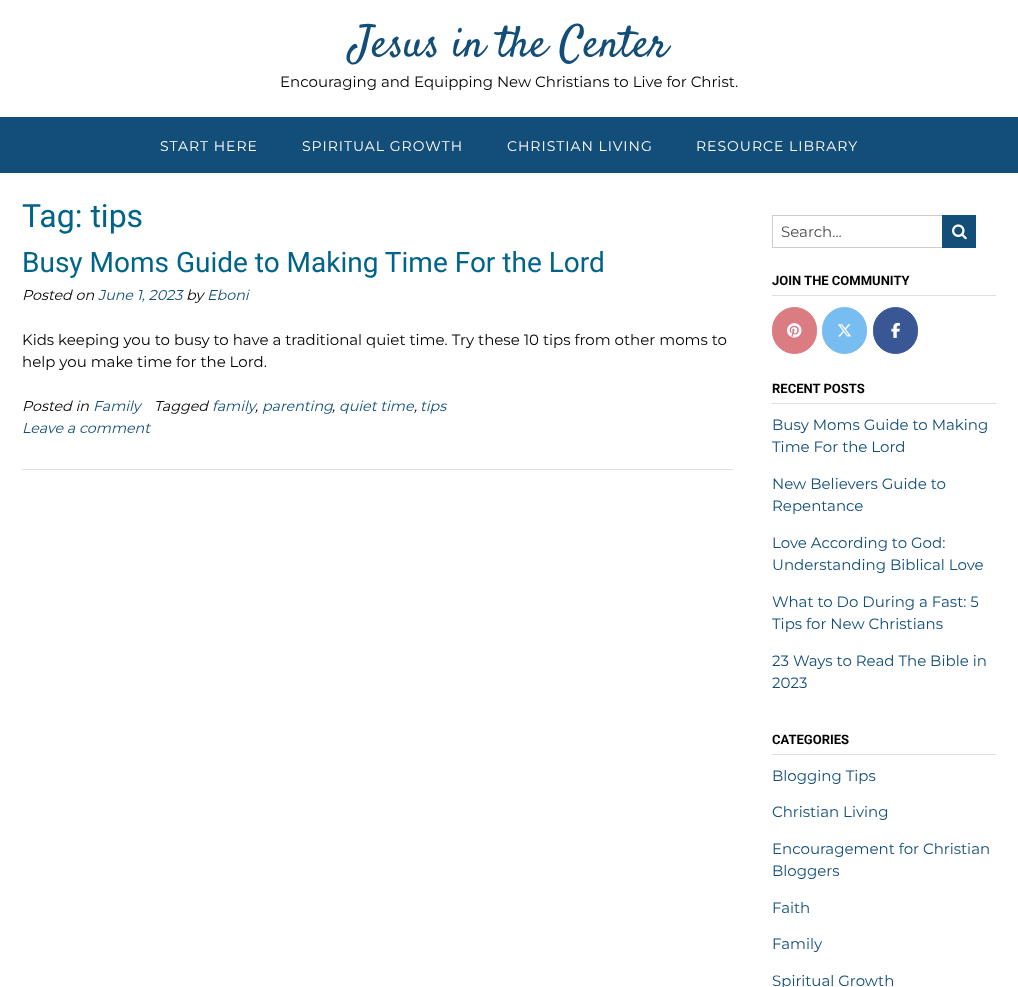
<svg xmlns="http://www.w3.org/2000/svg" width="1018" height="987">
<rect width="100%" height="100%" fill="#fff"/>
<text x="350" y="56" style="font-family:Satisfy;font-size:44px;fill:#124e78">Jesus in the Center</text>
<text x="280" y="87" style="font-family:Montserrat;font-size:15px;fill:#000">Encouraging and Equipping New Christians to Live for Christ.</text>
<rect y="117" width="1018" height="56" fill="#124e78"/>
<text x="160" y="151" style="font-family:Montserrat;font-size:14px;letter-spacing:1px;fill:#fff">START HERE</text>
<text x="302" y="151" style="font-family:Montserrat;font-size:14px;letter-spacing:1px;fill:#fff">SPIRITUAL GROWTH</text>
<text x="507" y="151" style="font-family:Montserrat;font-size:14px;letter-spacing:1px;fill:#fff">CHRISTIAN LIVING</text>
<text x="696" y="151" style="font-family:Montserrat;font-size:14px;letter-spacing:1px;fill:#fff">RESOURCE LIBRARY</text>
<text x="22" y="227" style="font-family:Roboto;font-size:32px;fill:#006489">Tag: tips</text>
<rect x="22" y="469" width="711" height="1" fill="#e0e0e0"/>
<text x="22" y="272" style="font-family:Roboto;font-size:28px;fill:#006489">Busy Moms Guide to Making Time For the Lord</text>
<text x="22" y="300" style="font-family:Montserrat;font-size:14.25px;font-style:italic;fill:#000">Posted on</text>
<text x="98" y="300" style="font-family:Montserrat;font-size:14.25px;font-style:italic;fill:#124e78">June 1, 2023</text>
<text x="186" y="300" style="font-family:Montserrat;font-size:14.25px;font-style:italic;fill:#000">by</text>
<text x="207" y="300" style="font-family:Montserrat;font-size:14.25px;font-style:italic;fill:#124e78">Eboni</text>
<text x="22" y="345" style="font-family:Montserrat;font-size:15px;fill:#000">Kids keeping you to busy to have a traditional quiet time. Try these 10 tips from other moms to</text>
<text x="22" y="367" style="font-family:Montserrat;font-size:15px;fill:#000">help you make time for the Lord.</text>
<text x="22" y="411" style="font-family:Montserrat;font-size:14.25px;font-style:italic;fill:#000">Posted in</text>
<text x="93" y="411" style="font-family:Montserrat;font-size:14.25px;font-style:italic;fill:#124e78">Family</text>
<text x="154" y="411" style="font-family:Montserrat;font-size:14.25px;font-style:italic;fill:#000">Tagged</text>
<text x="212" y="411" style="font-family:Montserrat;font-size:14.25px;font-style:italic;fill:#124e78">family</text>
<text x="262" y="411" style="font-family:Montserrat;font-size:14.25px;font-style:italic;fill:#124e78">parenting</text>
<text x="339" y="411" style="font-family:Montserrat;font-size:14.25px;font-style:italic;fill:#124e78">quiet time</text>
<text x="420" y="411" style="font-family:Montserrat;font-size:14.25px;font-style:italic;fill:#124e78">tips</text>
<text x="255" y="411" style="font-family:Montserrat;font-size:14.25px;font-style:italic;fill:#000">,</text>
<text x="332" y="411" style="font-family:Montserrat;font-size:14.25px;font-style:italic;fill:#000">,</text>
<text x="414" y="411" style="font-family:Montserrat;font-size:14.25px;font-style:italic;fill:#000">,</text>
<text x="22" y="433" style="font-family:Montserrat;font-size:14.25px;font-style:italic;fill:#124e78">Leave a comment</text>
<rect x="772.5" y="215.5" width="171" height="32" fill="none" stroke="#ccc"/>
<text x="781" y="237" style="font-family:Montserrat;font-size:15px;fill:#4d4d4d">Search...</text>
<rect x="942" y="215" width="34" height="33" fill="#124e78"/>
<image x="952" y="224" width="15" height="16" href="media/1.png"/>
<rect x="772" y="295" width="224" height="1" fill="#e0e0e0"/>
<text x="772" y="285" style="font-family:Roboto;font-size:13px;font-weight:bold;fill:#000">JOIN THE COMMUNITY</text>
<rect x="772.5" y="307.5" width="44" height="46" rx="22" fill="#db7c83" stroke="#db7c83"/>
<image x="787" y="323" width="15" height="15" href="media/2.png"/>
<rect x="822.5" y="307.5" width="44" height="46" rx="22" fill="#78bdf1" stroke="#78bdf1"/>
<image x="837" y="324" width="15" height="13" href="media/3.png"/>
<rect x="873.5" y="307.5" width="44" height="46" rx="22" fill="#3a5795" stroke="#3a5795"/>
<image x="891" y="322" width="9" height="16" href="media/4.png"/>
<rect x="772" y="403" width="224" height="1" fill="#e0e0e0"/>
<text x="772" y="393" style="font-family:Roboto;font-size:13px;font-weight:bold;fill:#000">RECENT POSTS</text>
<text x="772" y="430" style="font-family:Montserrat;font-size:15px;fill:#124e78">Busy Moms Guide to Making</text>
<text x="772" y="452" style="font-family:Montserrat;font-size:15px;fill:#124e78">Time For the Lord</text>
<text x="772" y="489" style="font-family:Montserrat;font-size:15px;fill:#124e78">New Believers Guide to</text>
<text x="772" y="511" style="font-family:Montserrat;font-size:15px;fill:#124e78">Repentance</text>
<text x="772" y="548" style="font-family:Montserrat;font-size:15px;fill:#124e78">Love According to God:</text>
<text x="772" y="570" style="font-family:Montserrat;font-size:15px;fill:#124e78">Understanding Biblical Love</text>
<text x="772" y="607" style="font-family:Montserrat;font-size:15px;fill:#124e78">What to Do During a Fast: 5</text>
<text x="772" y="629" style="font-family:Montserrat;font-size:15px;fill:#124e78">Tips for New Christians</text>
<text x="772" y="666" style="font-family:Montserrat;font-size:15px;fill:#124e78">23 Ways to Read The Bible in</text>
<text x="772" y="688" style="font-family:Montserrat;font-size:15px;fill:#124e78">2023</text>
<rect x="772" y="754" width="224" height="1" fill="#e0e0e0"/>
<text x="772" y="744" style="font-family:Roboto;font-size:13px;font-weight:bold;fill:#000">CATEGORIES</text>
<text x="772" y="781" style="font-family:Montserrat;font-size:15px;fill:#124e78">Blogging Tips</text>
<text x="772" y="817" style="font-family:Montserrat;font-size:15px;fill:#124e78">Christian Living</text>
<text x="772" y="854" style="font-family:Montserrat;font-size:15px;fill:#124e78">Encouragement for Christian</text>
<text x="772" y="876" style="font-family:Montserrat;font-size:15px;fill:#124e78">Bloggers</text>
<text x="772" y="913" style="font-family:Montserrat;font-size:15px;fill:#124e78">Faith</text>
<text x="772" y="949" style="font-family:Montserrat;font-size:15px;fill:#124e78">Family</text>
<text x="772" y="986" style="font-family:Montserrat;font-size:15px;fill:#124e78">Spiritual Growth</text>
</svg>
